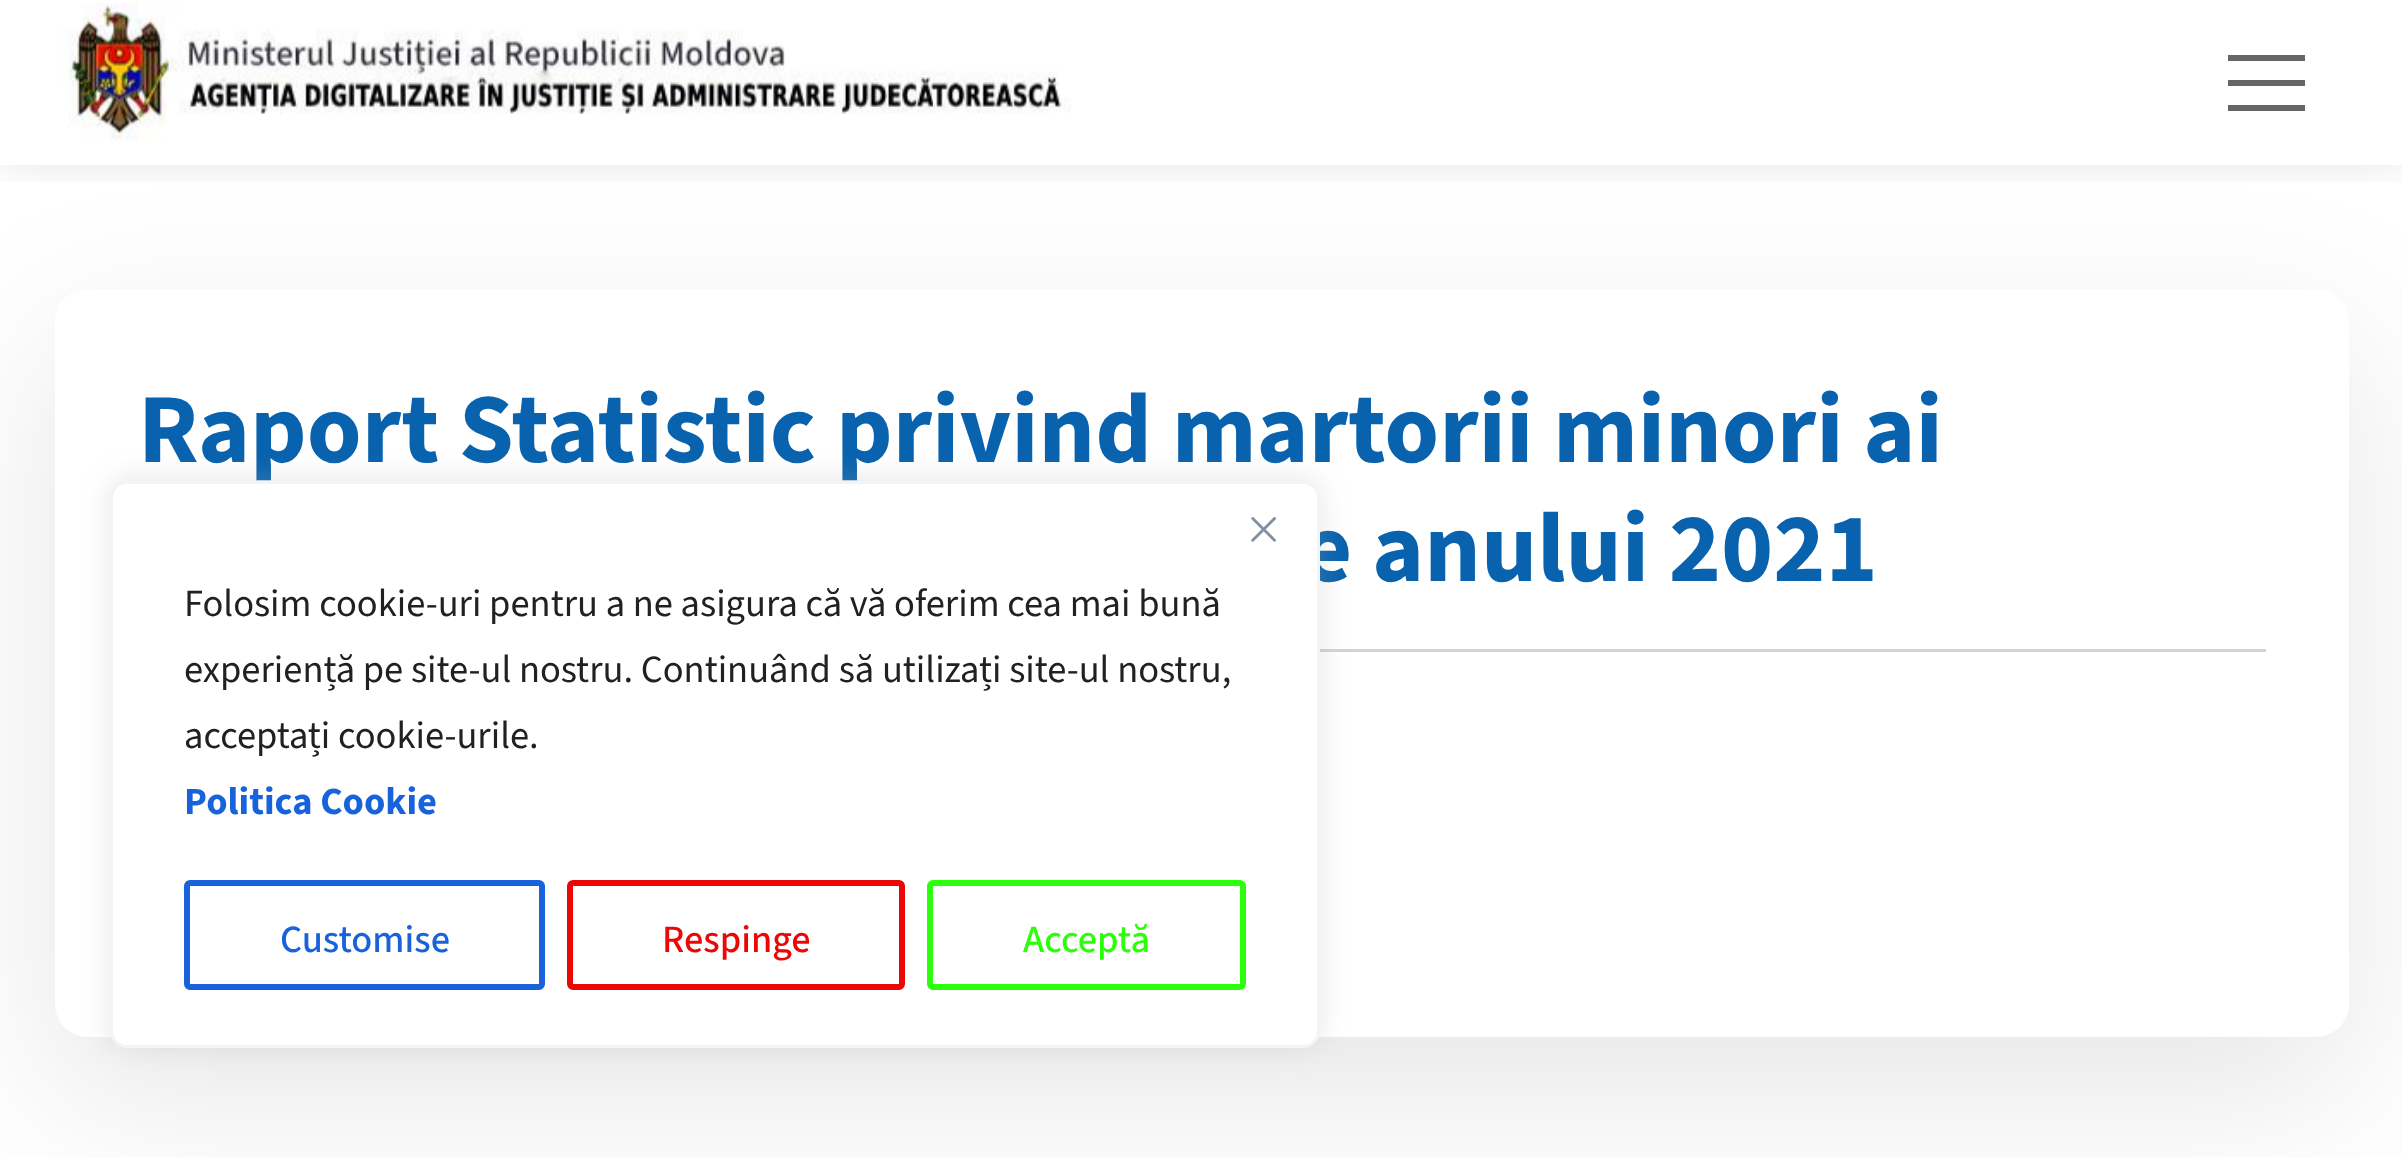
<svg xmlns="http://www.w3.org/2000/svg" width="2402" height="1157">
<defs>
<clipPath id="clip1"><rect x="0" y="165" width="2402" height="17"/></clipPath>
<clipPath id="clip2"><path d="M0 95h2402v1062h-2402zm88 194h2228c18 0 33 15 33 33v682c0 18-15 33-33 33h-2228c-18 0-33-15-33-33v-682c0-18 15-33 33-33z" clip-rule="evenodd"/></clipPath>
</defs>
<rect width="100%" height="100%" fill="#fff"/>
<g clip-path="url(#clip1)">
<rect width="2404" height="165" fill="#0000001a" filter="blur(20.5px)"/>
</g>
<g clip-path="url(#clip2)">
<rect x="55" y="344" width="2294" height="748" rx="33" fill="#0000001a" filter="blur(82.5px)"/>
</g>
<image x="59" y="2" width="1012" height="139" href="media/1.png"/>
<rect x="2228" y="55" width="77" height="6" fill="#666"/>
<rect x="2228" y="80" width="77" height="6" fill="#666"/>
<rect x="2228" y="105" width="77" height="6" fill="#666"/>
<rect x="1320" y="649" width="946" height="3" fill="#d3d3d3"/>
<text x="138" y="462" style="font-family:'Source Sans 3';font-size:99px;font-weight:bold;fill:#0862ae">Raport Statistic privind martorii minori ai</text>
<text x="1301" y="581" style="font-family:'Source Sans 3';font-size:99px;font-weight:bold;fill:#0862ae">e anului 2021</text>
<rect x="110" y="479" width="1210" height="566" rx="17" fill="#acabab4d" filter="blur(14px)"/>
<rect x="111.5" y="482.5" width="1207" height="564" rx="15.5" fill="#fff" stroke="#f4f4f4" stroke-width="3"/>
<image x="1251" y="517" width="25" height="25" href="media/2.png"/>
<text x="184" y="616" style="font-family:'Source Sans 3';font-size:38.5px;fill:#212121">Folosim cookie-uri pentru a ne asigura că vă oferim cea mai bună</text>
<text x="184" y="682" style="font-family:'Source Sans 3';font-size:38.5px;fill:#212121">experiență pe site-ul nostru. Continuând să utilizați site-ul nostru,</text>
<text x="184" y="748" style="font-family:'Source Sans 3';font-size:38.5px;fill:#212121">acceptați cookie-urile.</text>
<text x="184" y="814" style="font-family:'Source Sans 3';font-size:38.5px;font-weight:bold;fill:#1863dc">Politica Cookie</text>
<rect x="187" y="883" width="355" height="104" rx="3" fill="none" stroke="#1863dc" stroke-width="6"/>
<text x="280" y="952" style="font-family:'Source Sans 3';font-size:38.5px;font-weight:500;fill:#1863dc">Customise</text>
<rect x="570" y="883" width="332" height="104" rx="3" fill="none" stroke="#ec0707" stroke-width="6"/>
<text x="662" y="952" style="font-family:'Source Sans 3';font-size:38.5px;font-weight:500;fill:#ec0707">Respinge</text>
<rect x="930" y="883" width="313" height="104" rx="3" fill="none" stroke="#2bff09" stroke-width="6"/>
<text x="1023" y="952" style="font-family:'Source Sans 3';font-size:38.5px;font-weight:500;fill:#2bff09">Acceptă</text>
</svg>
